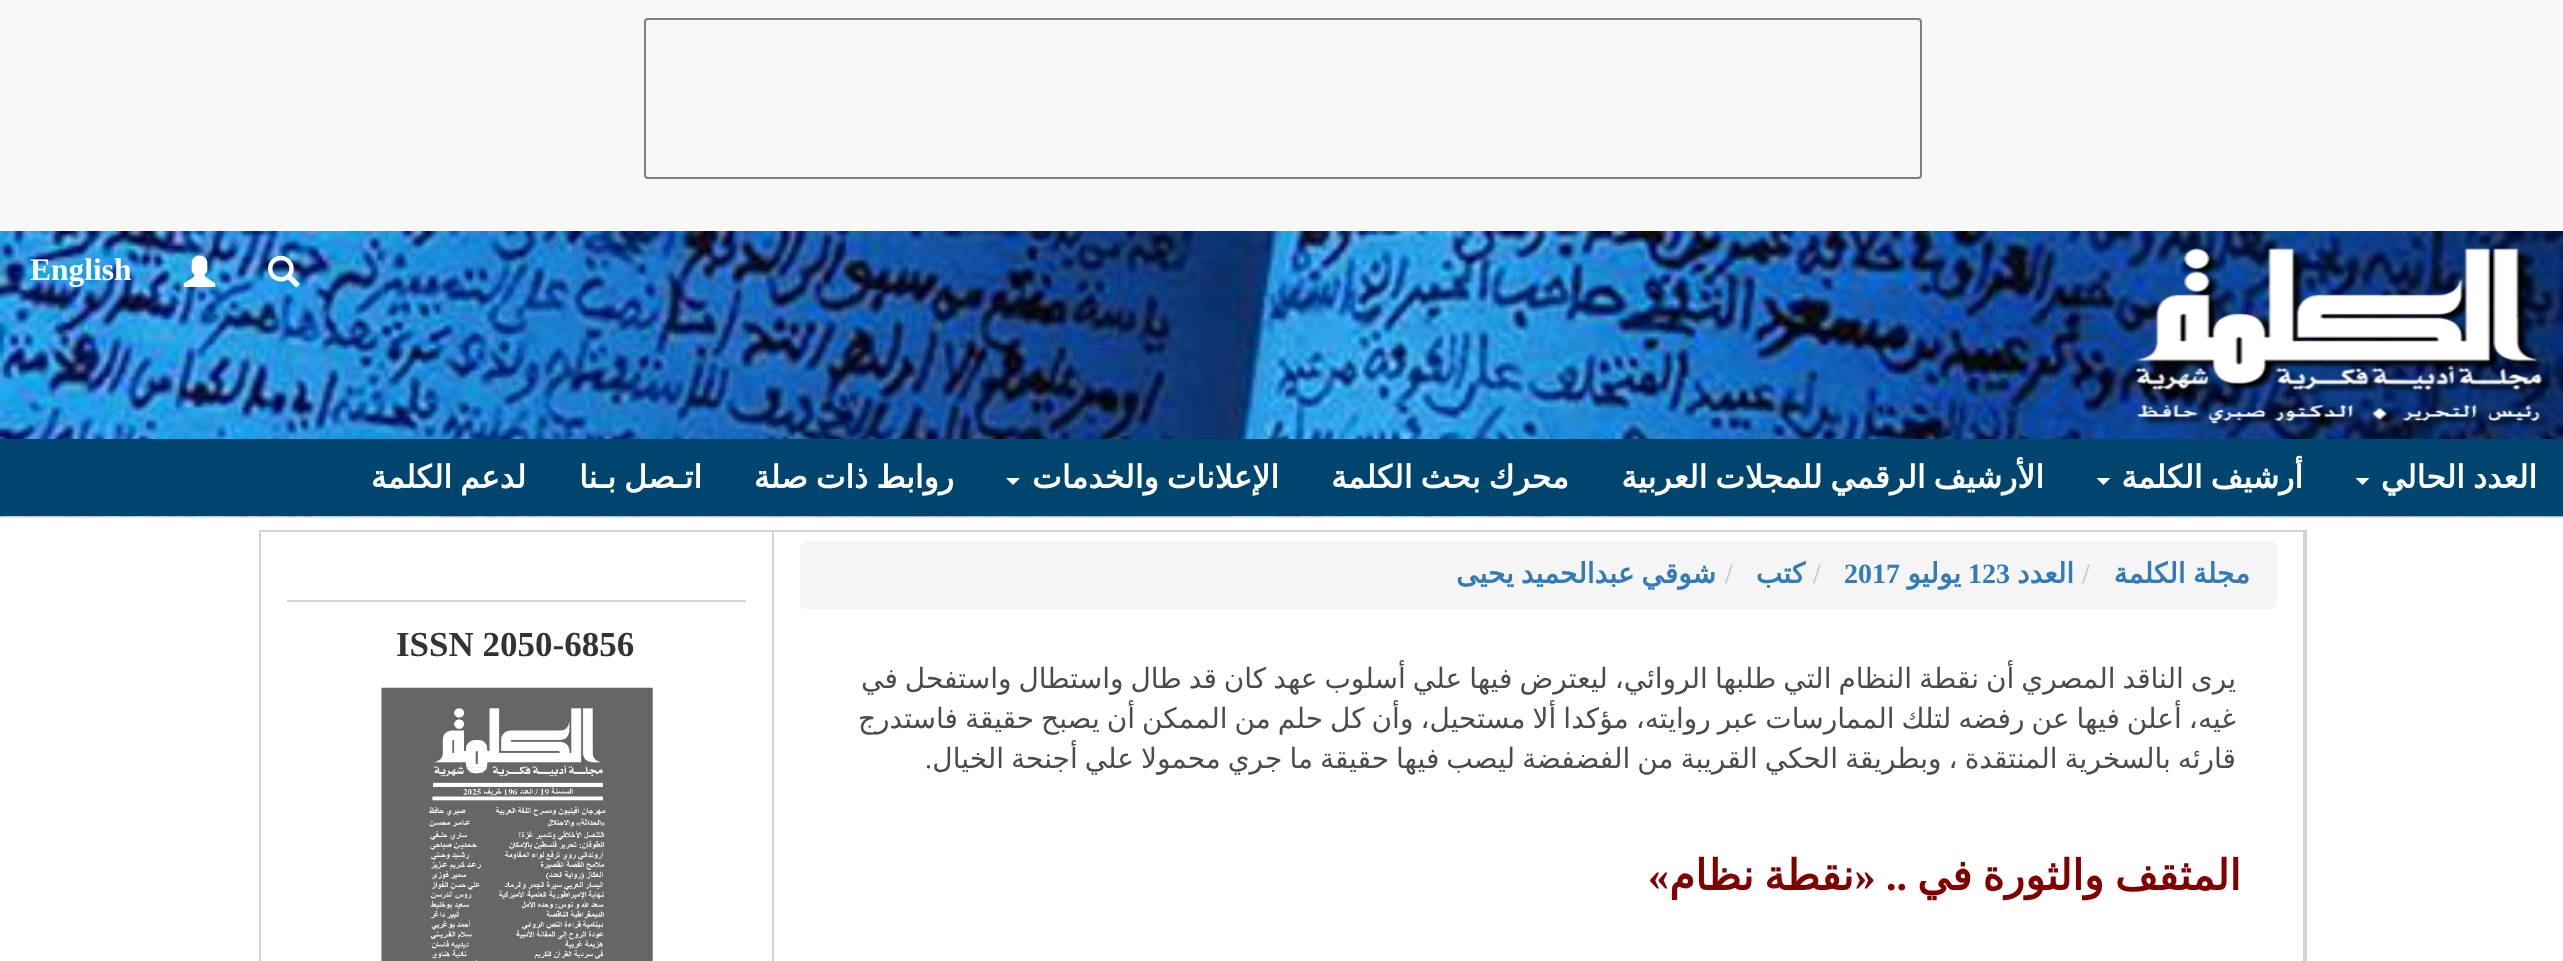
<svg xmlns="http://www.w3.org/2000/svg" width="2563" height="961">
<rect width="100%" height="100%" fill="#fff"/>
<rect width="2563" height="231" fill="#f8f8f8"/>
<rect y="516" width="2563" height="2" fill="#e7e7e7"/>
<rect x="645" y="19" width="1276" height="159" rx="3" fill="none" stroke="#808080" stroke-width="2"/>
<image x="0" y="231" width="2563" height="286" href="media/1.png"/>
<image x="2135" y="248" width="418" height="184" href="media/2.png"/>
<image x="268" y="255" width="32" height="33" href="media/3.png"/>
<image x="183" y="255" width="33" height="32" href="media/4.png"/>
<text x="30" y="280" style="font-family:Liberation Serif;font-size:31.5px;font-weight:bold;fill:#fff">English</text>
<rect y="439" width="2563" height="77" fill="#00456e"/>
<text x="2537" y="488" word-spacing="-2" style="font-family:DejaVu Sans;font-size:31.5px;font-weight:bold;direction:rtl;fill:#fff">العدد الحالي</text>
<path d="M2355.5 478h14l-7 7z" fill="#fff"/>
<text x="2303" y="488" word-spacing="-2" style="font-family:DejaVu Sans;font-size:31.5px;font-weight:bold;direction:rtl;fill:#fff">أرشيف الكلمة</text>
<path d="M2096.5 478h14l-7 7z" fill="#fff"/>
<text x="2044" y="488" word-spacing="-2" style="font-family:DejaVu Sans;font-size:31.5px;font-weight:bold;direction:rtl;fill:#fff">الأرشيف الرقمي للمجلات العربية</text>
<text x="1569" y="488" word-spacing="-2" style="font-family:DejaVu Sans;font-size:31.5px;font-weight:bold;direction:rtl;fill:#fff">محرك بحث الكلمة</text>
<text x="1279" y="488" word-spacing="-2" style="font-family:DejaVu Sans;font-size:31.5px;font-weight:bold;direction:rtl;fill:#fff">الإعلانات والخدمات</text>
<path d="M1006 478h14l-7 7z" fill="#fff"/>
<text x="954" y="488" word-spacing="-2" style="font-family:DejaVu Sans;font-size:31.5px;font-weight:bold;direction:rtl;fill:#fff">روابط ذات صلة</text>
<text x="702" y="488" word-spacing="-2" style="font-family:DejaVu Sans;font-size:31.5px;font-weight:bold;direction:rtl;fill:#fff">اتـصل بـنا</text>
<text x="526" y="488" word-spacing="-2" style="font-family:DejaVu Sans;font-size:31.5px;font-weight:bold;direction:rtl;fill:#fff">لدعم الكلمة</text>
<rect x="260" y="531" width="2046" height="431" fill="none" stroke="#d3d3d3" stroke-width="2"/>
<rect x="2303" y="532" width="2" height="429" fill="#d3d3d3"/>
<rect x="772" y="532" width="2" height="429" fill="#d3d3d3"/>
<rect x="800" y="541" width="1477" height="68" rx="7" fill="#f5f5f5"/>
<text x="2250" y="583" word-spacing="-1.9" style="font-family:DejaVu Sans;font-size:28px;font-weight:bold;direction:rtl;fill:#337ab7">مجلة الكلمة</text>
<text x="2082" y="583" style="font-family:Liberation Serif;font-size:28px;font-weight:bold;fill:#ccc">/</text>
<text x="2074" y="583" style="font-family:DejaVu Sans;font-size:28px;font-weight:bold;direction:rtl;fill:#337ab7">العدد</text>
<text x="1968" y="583" style="font-family:Liberation Serif;font-size:28px;font-weight:bold;fill:#337ab7">123</text>
<text x="1961" y="583" style="font-family:DejaVu Sans;font-size:28px;font-weight:bold;direction:rtl;fill:#337ab7">يوليو</text>
<text x="1844" y="583" style="font-family:Liberation Serif;font-size:28px;font-weight:bold;fill:#337ab7">2017</text>
<text x="1813" y="583" style="font-family:Liberation Serif;font-size:28px;font-weight:bold;fill:#ccc">/</text>
<text x="1805" y="583" style="font-family:DejaVu Sans;font-size:28px;font-weight:bold;direction:rtl;fill:#337ab7">كتب</text>
<text x="1725" y="583" style="font-family:Liberation Serif;font-size:28px;font-weight:bold;fill:#ccc">/</text>
<text x="1716" y="583" word-spacing="-1.9" style="font-family:DejaVu Sans;font-size:28px;font-weight:bold;direction:rtl;fill:#337ab7">شوقي عبدالحميد يحيى</text>
<text x="2236" y="688" word-spacing="-1.9" style="font-family:DejaVu Sans;font-size:28px;direction:rtl;fill:#4e4a4a">يرى الناقد المصري أن نقطة النظام التي طلبها الروائي، ليعترض فيها علي أسلوب عهد كان قد طال واستطال واستفحل في</text>
<text x="2236" y="728" word-spacing="-1.9" style="font-family:DejaVu Sans;font-size:28px;direction:rtl;fill:#4e4a4a">غيه، أعلن فيها عن رفضه لتلك الممارسات عبر روايته، مؤكدا ألا مستحيل، وأن كل حلم من الممكن أن يصبح حقيقة فاستدرج</text>
<text x="2236" y="768" word-spacing="-1.9" style="font-family:DejaVu Sans;font-size:28px;direction:rtl;fill:#4e4a4a">قارئه بالسخرية المنتقدة ، وبطريقة الحكي القريبة من الفضفضة ليصب فيها حقيقة ما جري محمولا علي أجنحة الخيال</text>
<text x="932" y="768" style="font-family:Liberation Serif;font-size:28px;direction:rtl;fill:#4e4a4a">.</text>
<text x="2241" y="890" style="font-family:DejaVu Sans;font-size:42px;font-weight:bold;direction:rtl;fill:#800000">المثقف</text>
<text x="2104" y="890" style="font-family:DejaVu Sans;font-size:42px;font-weight:bold;direction:rtl;fill:#800000">والثورة</text>
<text x="1972" y="890" style="font-family:DejaVu Sans;font-size:42px;font-weight:bold;direction:rtl;fill:#800000">في</text>
<text x="1907" y="890" style="font-family:Liberation Serif;font-size:42px;font-weight:bold;direction:rtl;fill:#800000">.. «</text>
<text x="1854" y="890" style="font-family:DejaVu Sans;font-size:42px;font-weight:bold;direction:rtl;fill:#800000">نقطة</text>
<text x="1754" y="890" style="font-family:DejaVu Sans;font-size:42px;font-weight:bold;direction:rtl;fill:#800000">نظام</text>
<text x="1669" y="890" style="font-family:Liberation Serif;font-size:42px;font-weight:bold;direction:rtl;fill:#800000">»</text>
<rect x="287" y="600" width="459" height="2" fill="#d3d3d3"/>
<text x="396" y="656" style="font-family:Liberation Serif;font-size:35px;font-weight:bold;fill:#333">ISSN 2050-6856</text>
<image x="381" y="687" width="272" height="274" href="media/5.png"/>
</svg>
